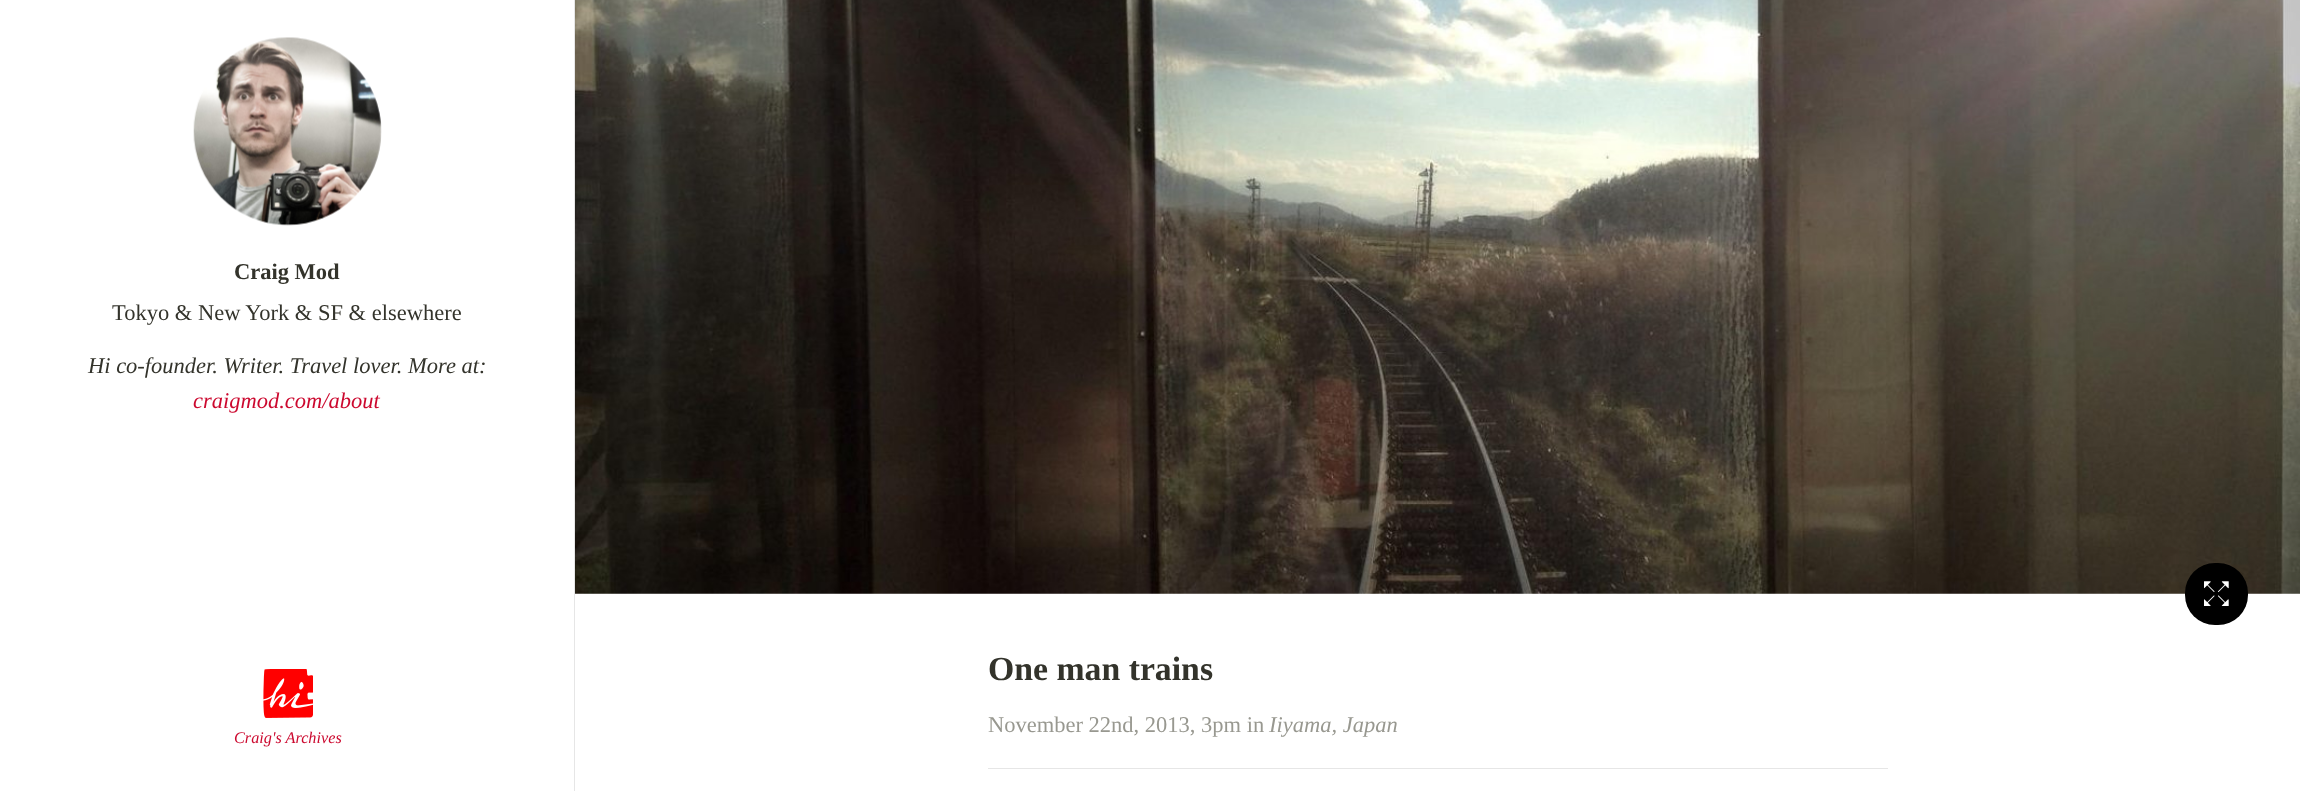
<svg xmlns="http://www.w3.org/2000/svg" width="2300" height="791">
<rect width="100%" height="100%" fill="#fff"/>
<rect x="574" width="1" height="791" fill="#e6e6e6"/>
<image x="193" y="37" width="189" height="189" href="media/1.png"/>
<text x="234" y="279" style="font-family:Liberation Serif;font-size:22.5px;font-weight:bold;fill:#33332b">Craig Mod</text>
<text x="112" y="320" style="font-family:Liberation Serif;font-size:22.5px;fill:#33332b">Tokyo &amp; New York &amp; SF &amp; elsewhere</text>
<text x="88" y="373" style="font-family:Liberation Serif;font-size:22.5px;font-style:italic;fill:#33332b">Hi co-founder. Writer. Travel lover. More at:</text>
<text x="193" y="408" style="font-family:Liberation Serif;font-size:22.5px;font-style:italic;fill:#cc092f">craigmod.com/about</text>
<image x="263" y="669" width="50" height="49" href="media/2.png"/>
<text x="234" y="743" style="font-family:Liberation Serif;font-size:16.25px;font-style:italic;fill:#cc092f">Craig's Archives</text>
<image x="575" y="0" width="1725" height="594" href="media/3.png"/>
<rect x="2185" y="563" width="63" height="62" rx="30" fill="#000"/>
<image x="2204" y="581" width="25" height="25" href="media/4.png"/>
<text x="988" y="680" style="font-family:Liberation Serif;font-size:33.75px;font-weight:bold;fill:#33332b">One man trains</text>
<text x="988" y="732" style="font-family:Liberation Serif;font-size:22.5px;fill:#989890">November 22nd, 2013, 3pm in</text>
<text x="1269" y="732" style="font-family:Liberation Serif;font-size:22.5px;font-style:italic;fill:#989890">Iiyama, Japan</text>
<rect x="988" y="768" width="900" height="1" fill="#e6e6e6"/>
</svg>
